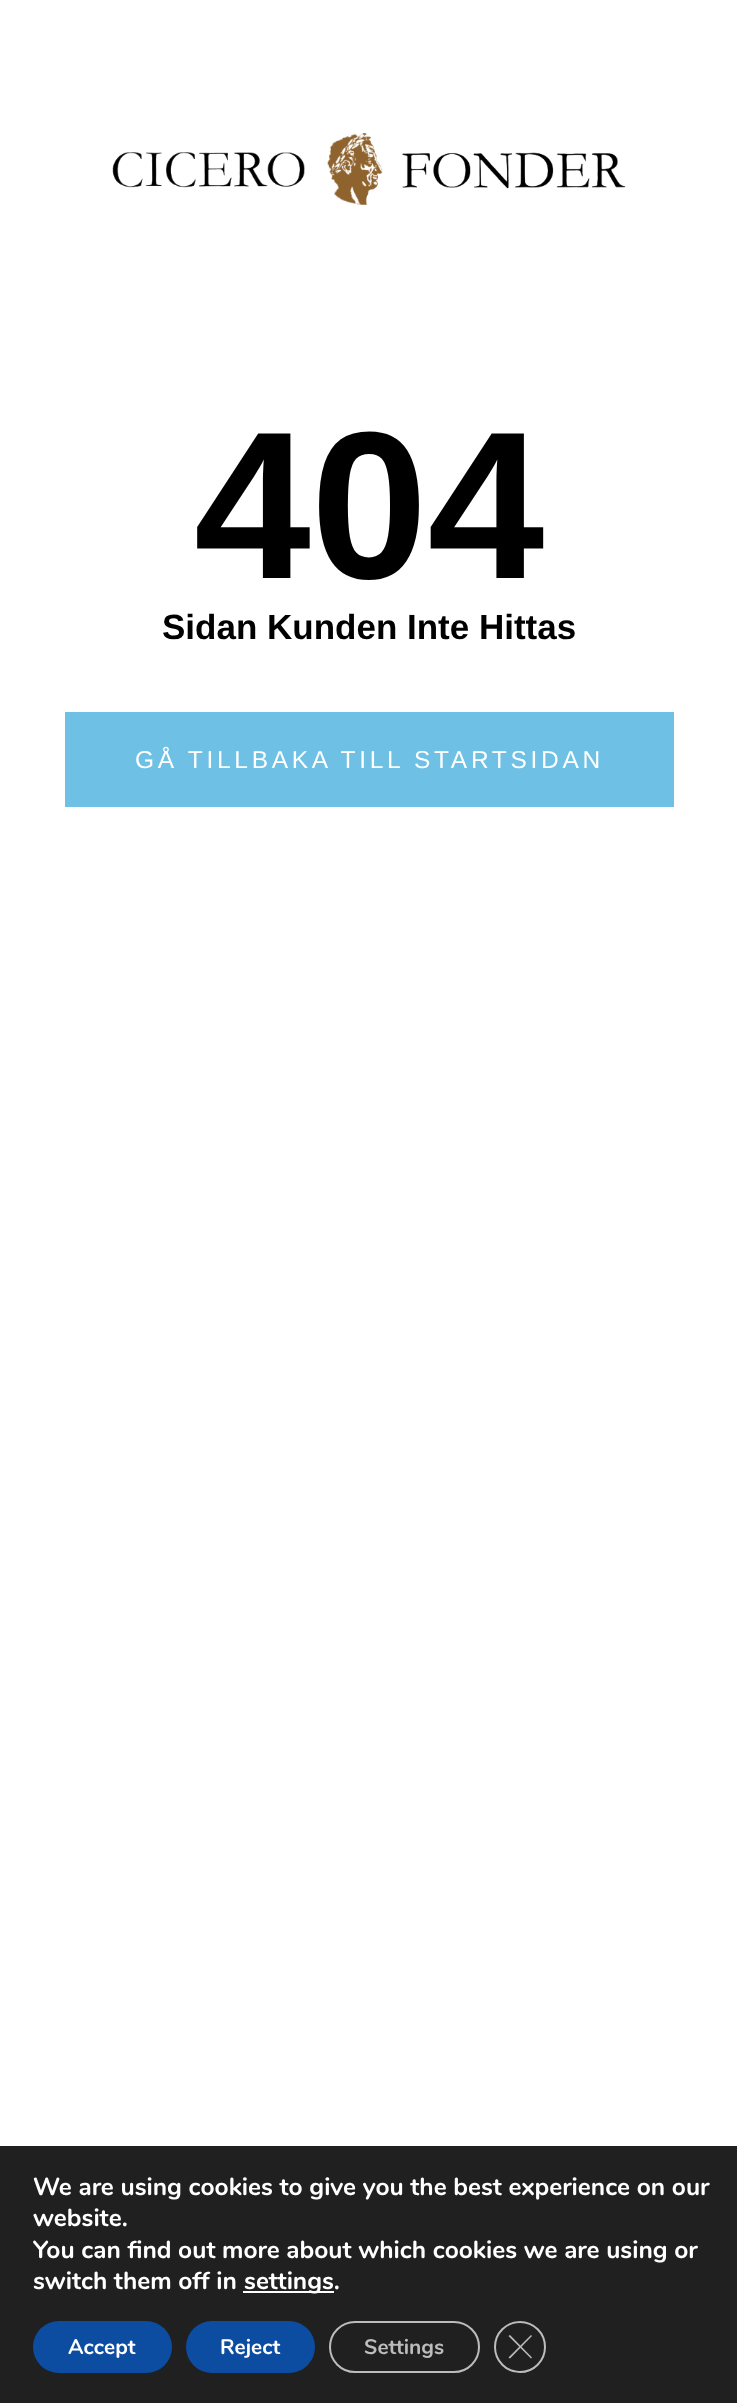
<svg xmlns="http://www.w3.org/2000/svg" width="737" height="2403">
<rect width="100%" height="100%" fill="#fff"/>
<image x="112" y="133" width="514" height="72" href="media/1.png"/>
<text x="194" y="578" style="font-family:Liberation Sans;font-size:210px;font-weight:bold;fill:#000">404</text>
<text x="162" y="639" style="font-family:Liberation Sans;font-size:35px;font-weight:bold;fill:#000">Sidan Kunden Inte Hittas</text>
<rect x="65" y="712" width="609" height="95" fill="#6ec1e4"/>
<text x="135" y="768" style="font-family:Liberation Sans;font-size:24.5px;letter-spacing:3.7px;fill:#fff">GÅ TILLBAKA TILL STARTSIDAN</text>
<rect y="2146" width="737" height="257" fill="#202020"/>
<text x="33" y="2195" style="font-family:Nunito;font-size:24.5px;font-weight:bold;fill:#fff">We are using cookies to give you the best experience on our</text>
<text x="33" y="2226" style="font-family:Nunito;font-size:24.5px;font-weight:bold;fill:#fff">website.</text>
<text x="33" y="2258" style="font-family:Nunito;font-size:24.5px;font-weight:bold;fill:#fff">You can find out more about which cookies we are using or</text>
<text x="33" y="2289" style="font-family:Nunito;font-size:24.5px;font-weight:bold;fill:#fff">switch them off in</text>
<rect x="243" y="2291" width="91" height="2" fill="#fff"/>
<text x="244" y="2289" style="font-family:Nunito;font-size:24.5px;font-weight:bold;fill:#fff">settings.</text>
<rect x="33" y="2321" width="139" height="52" rx="26" fill="#0c4da2"/>
<text x="68" y="2354" style="font-family:Nunito;font-size:21px;font-weight:bold;fill:#fff">Accept</text>
<rect x="186" y="2321" width="129" height="52" rx="26" fill="#0c4da2"/>
<text x="220" y="2354" style="font-family:Nunito;font-size:21px;font-weight:bold;fill:#fff">Reject</text>
<rect x="330" y="2322" width="149" height="50" rx="25" fill="none" stroke="#bcbcbc" stroke-width="2"/>
<text x="364" y="2354" style="font-family:Nunito;font-size:21px;font-weight:bold;fill:#bcbcbc">Settings</text>
<circle cx="520" cy="2347" r="25" fill="none" stroke="#bcbcbc" stroke-width="2"/>
<path d="M531 2335l1 1l-22 22.5l-1.5-1z" fill="#bcbcbc"/>
<path d="M508.5 2336l1.5-1l22 22.5l-1 1z" fill="#bcbcbc"/>
</svg>
